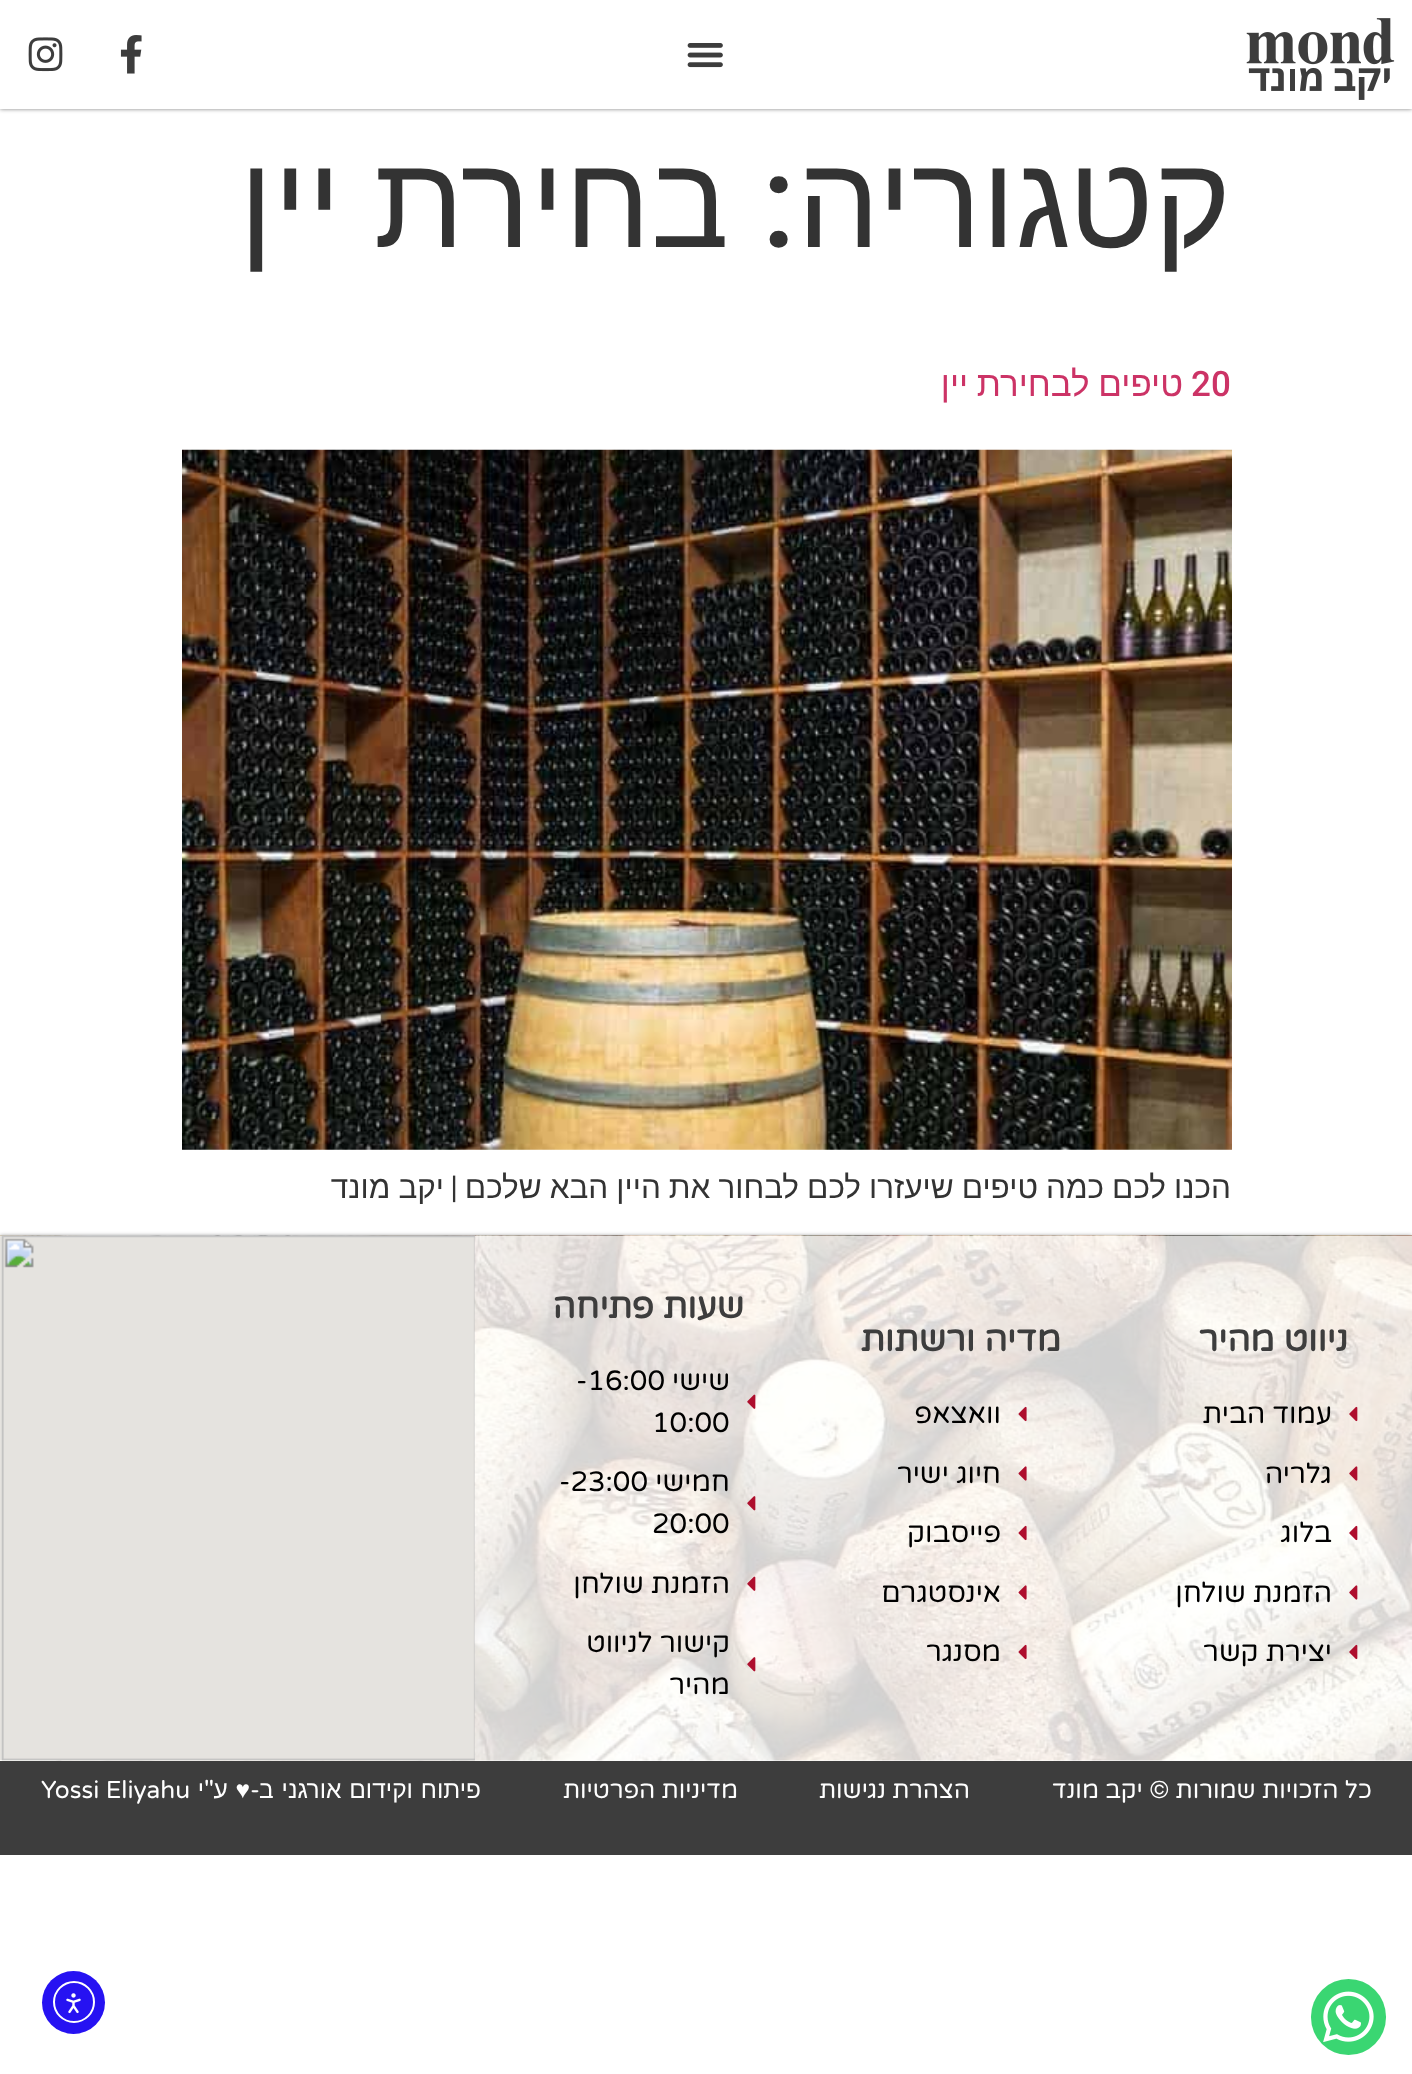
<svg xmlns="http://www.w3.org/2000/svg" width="1412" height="2074">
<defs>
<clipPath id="clip1"><path d="M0 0h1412v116h-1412zm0 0h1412v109h-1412z" clip-rule="evenodd"/></clipPath>
</defs>
<rect width="100%" height="100%" fill="#fff"/>
<g clip-path="url(#clip1)">
<rect width="1412" height="109" fill="#00000080" filter="blur(2px)"/>
</g>
<image x="1246" y="18" width="149" height="82" href="media/1.png"/>
<image x="687" y="43" width="36" height="25" href="media/2.png"/>
<image x="120" y="35" width="22" height="39" href="media/3.png"/>
<image x="28" y="37" width="35" height="35" href="media/4.png"/>
<text x="1231" y="247" style="font-family:Liberation Sans;font-size:131px;direction:rtl;fill:#333">קטגוריה</text>
<text x="796" y="247" style="font-family:Roboto;font-size:131px;font-weight:500;direction:rtl;fill:#333">:</text>
<text x="729" y="247" word-spacing="-4" style="font-family:Liberation Sans;font-size:131px;direction:rtl;fill:#333">בחירת יין</text>
<text x="1191" y="396" style="font-family:Roboto;font-size:35px;font-weight:500;fill:#c36">20</text>
<text x="1183" y="396" word-spacing="-1" style="font-family:Liberation Sans;font-size:35px;direction:rtl;fill:#c36">טיפים לבחירת יין</text>
<image x="182" y="449" width="1050" height="701" href="media/5.png"/>
<text x="1231" y="1198" word-spacing="-0.75" style="font-family:Liberation Sans;font-size:31.5px;direction:rtl;fill:#333">הכנו לכם כמה טיפים שיעזרו לכם לבחור את היין הבא שלכם</text>
<text x="458" y="1198" style="font-family:Roboto;font-size:31.5px;direction:rtl;fill:#333">|</text>
<text x="444" y="1198" word-spacing="-0.75" style="font-family:Liberation Sans;font-size:31.5px;direction:rtl;fill:#333">יקב מונד</text>
<rect y="1236" width="1412" height="525" fill="#00000080" filter="blur(2px)"/>
<rect y="1760" width="1412" height="1" fill="#fff"/>
<image x="0" y="1235" width="1412" height="526" href="media/6.png"/>
<rect y="1236" width="1412" height="525" fill="#ffffffcc"/>
<image x="0" y="1235" width="475" height="526" href="media/7.png"/>
<text x="1348" y="1351" style="font-family:Varela Round;font-size:35px;font-weight:bold;direction:rtl;fill:#3d3d3d">ניווט מהיר</text>
<image x="1349" y="1406" width="9" height="16" href="media/8.png"/>
<text x="1332" y="1423" style="font-family:Varela Round;font-size:28px;direction:rtl;fill:#000">עמוד הבית</text>
<image x="1349" y="1466" width="9" height="15" href="media/9.png"/>
<text x="1332" y="1483" style="font-family:Varela Round;font-size:28px;direction:rtl;fill:#000">גלריה</text>
<image x="1349" y="1525" width="9" height="16" href="media/10.png"/>
<text x="1332" y="1542" style="font-family:Varela Round;font-size:28px;direction:rtl;fill:#000">בלוג</text>
<image x="1349" y="1585" width="9" height="15" href="media/11.png"/>
<text x="1332" y="1602" style="font-family:Varela Round;font-size:28px;direction:rtl;fill:#000">הזמנת שולחן</text>
<image x="1349" y="1644" width="9" height="16" href="media/12.png"/>
<text x="1332" y="1661" style="font-family:Varela Round;font-size:28px;direction:rtl;fill:#000">יצירת קשר</text>
<text x="1061" y="1351" style="font-family:Varela Round;font-size:35px;font-weight:bold;direction:rtl;fill:#3d3d3d">מדיה ורשתות</text>
<image x="1018" y="1406" width="9" height="16" href="media/13.png"/>
<text x="1001" y="1423" style="font-family:Varela Round;font-size:28px;direction:rtl;fill:#000">וואצאפ</text>
<image x="1018" y="1466" width="9" height="15" href="media/14.png"/>
<text x="1001" y="1483" style="font-family:Varela Round;font-size:28px;direction:rtl;fill:#000">חיוג ישיר</text>
<image x="1018" y="1525" width="9" height="16" href="media/15.png"/>
<text x="1001" y="1542" style="font-family:Varela Round;font-size:28px;direction:rtl;fill:#000">פייסבוק</text>
<image x="1018" y="1585" width="9" height="15" href="media/16.png"/>
<text x="1001" y="1602" style="font-family:Varela Round;font-size:28px;direction:rtl;fill:#000">אינסטגרם</text>
<image x="1018" y="1644" width="9" height="16" href="media/17.png"/>
<text x="1001" y="1661" style="font-family:Varela Round;font-size:28px;direction:rtl;fill:#000">מסנגר</text>
<text x="744" y="1318" style="font-family:Varela Round;font-size:35px;font-weight:bold;direction:rtl;fill:#3d3d3d">שעות פתיחה</text>
<image x="747" y="1394" width="9" height="15" href="media/18.png"/>
<text x="730" y="1390" style="font-family:Varela Round;font-size:28px;direction:rtl;fill:#000">שישי</text>
<text x="576" y="1390" style="font-family:Varela Round;font-size:28px;fill:#000">-16:00</text>
<text x="652" y="1432" style="font-family:Varela Round;font-size:28px;fill:#000">10:00</text>
<image x="747" y="1496" width="9" height="15" href="media/19.png"/>
<text x="730" y="1491" style="font-family:Varela Round;font-size:28px;direction:rtl;fill:#000">חמישי</text>
<text x="559" y="1491" style="font-family:Varela Round;font-size:28px;fill:#000">-23:00</text>
<text x="652" y="1533" style="font-family:Varela Round;font-size:28px;fill:#000">20:00</text>
<image x="747" y="1576" width="9" height="15" href="media/20.png"/>
<text x="730" y="1593" style="font-family:Varela Round;font-size:28px;direction:rtl;fill:#000">הזמנת שולחן</text>
<image x="747" y="1657" width="9" height="15" href="media/21.png"/>
<text x="730" y="1652" style="font-family:Varela Round;font-size:28px;direction:rtl;fill:#000">קישור לניווט</text>
<text x="730" y="1694" style="font-family:Varela Round;font-size:28px;direction:rtl;fill:#000">מהיר</text>
<rect y="1761" width="1412" height="94" fill="#3d3d3d"/>
<text x="1372" y="1798" style="font-family:Varela Round;font-size:24.5px;direction:rtl;fill:#fff">כל הזכויות שמורות © יקב מונד</text>
<text x="970" y="1798" style="font-family:Varela Round;font-size:24.5px;direction:rtl;fill:#fff">הצהרת נגישות</text>
<text x="738" y="1798" style="font-family:Varela Round;font-size:24.5px;direction:rtl;fill:#fff">מדיניות הפרטיות</text>
<text x="481" y="1798" word-spacing="1" style="font-family:Liberation Sans;font-size:24.5px;direction:rtl;fill:#fff">פיתוח וקידום אורגני ב</text>
<text x="260" y="1798" style="font-family:Varela Round;font-size:24.5px;direction:rtl;fill:#fff">-</text>
<text x="250" y="1798" word-spacing="1" style="font-family:Liberation Sans;font-size:24.5px;direction:rtl;fill:#fff">♥ ע</text>
<text x="214" y="1798" style="font-family:Varela Round;font-size:24.5px;direction:rtl;fill:#fff">"</text>
<text x="204" y="1798" style="font-family:Liberation Sans;font-size:24.5px;direction:rtl;fill:#fff">י</text>
<text x="41" y="1798" style="font-family:Varela Round;font-size:24.5px;fill:#fff">Yossi Eliyahu</text>
<rect x="1311" y="1979" width="75" height="76" rx="37.5" fill="#3ad672"/>
<image x="1323" y="1991" width="51" height="52" href="media/22.png"/>
<circle cx="73.5" cy="2002.5" r="31.5" fill="#2612f2"/>
<circle cx="74" cy="2002" r="20" fill="none" stroke="#fff" stroke-width="2"/>
<image x="66" y="1993" width="15" height="21" href="media/23.png"/>
</svg>
